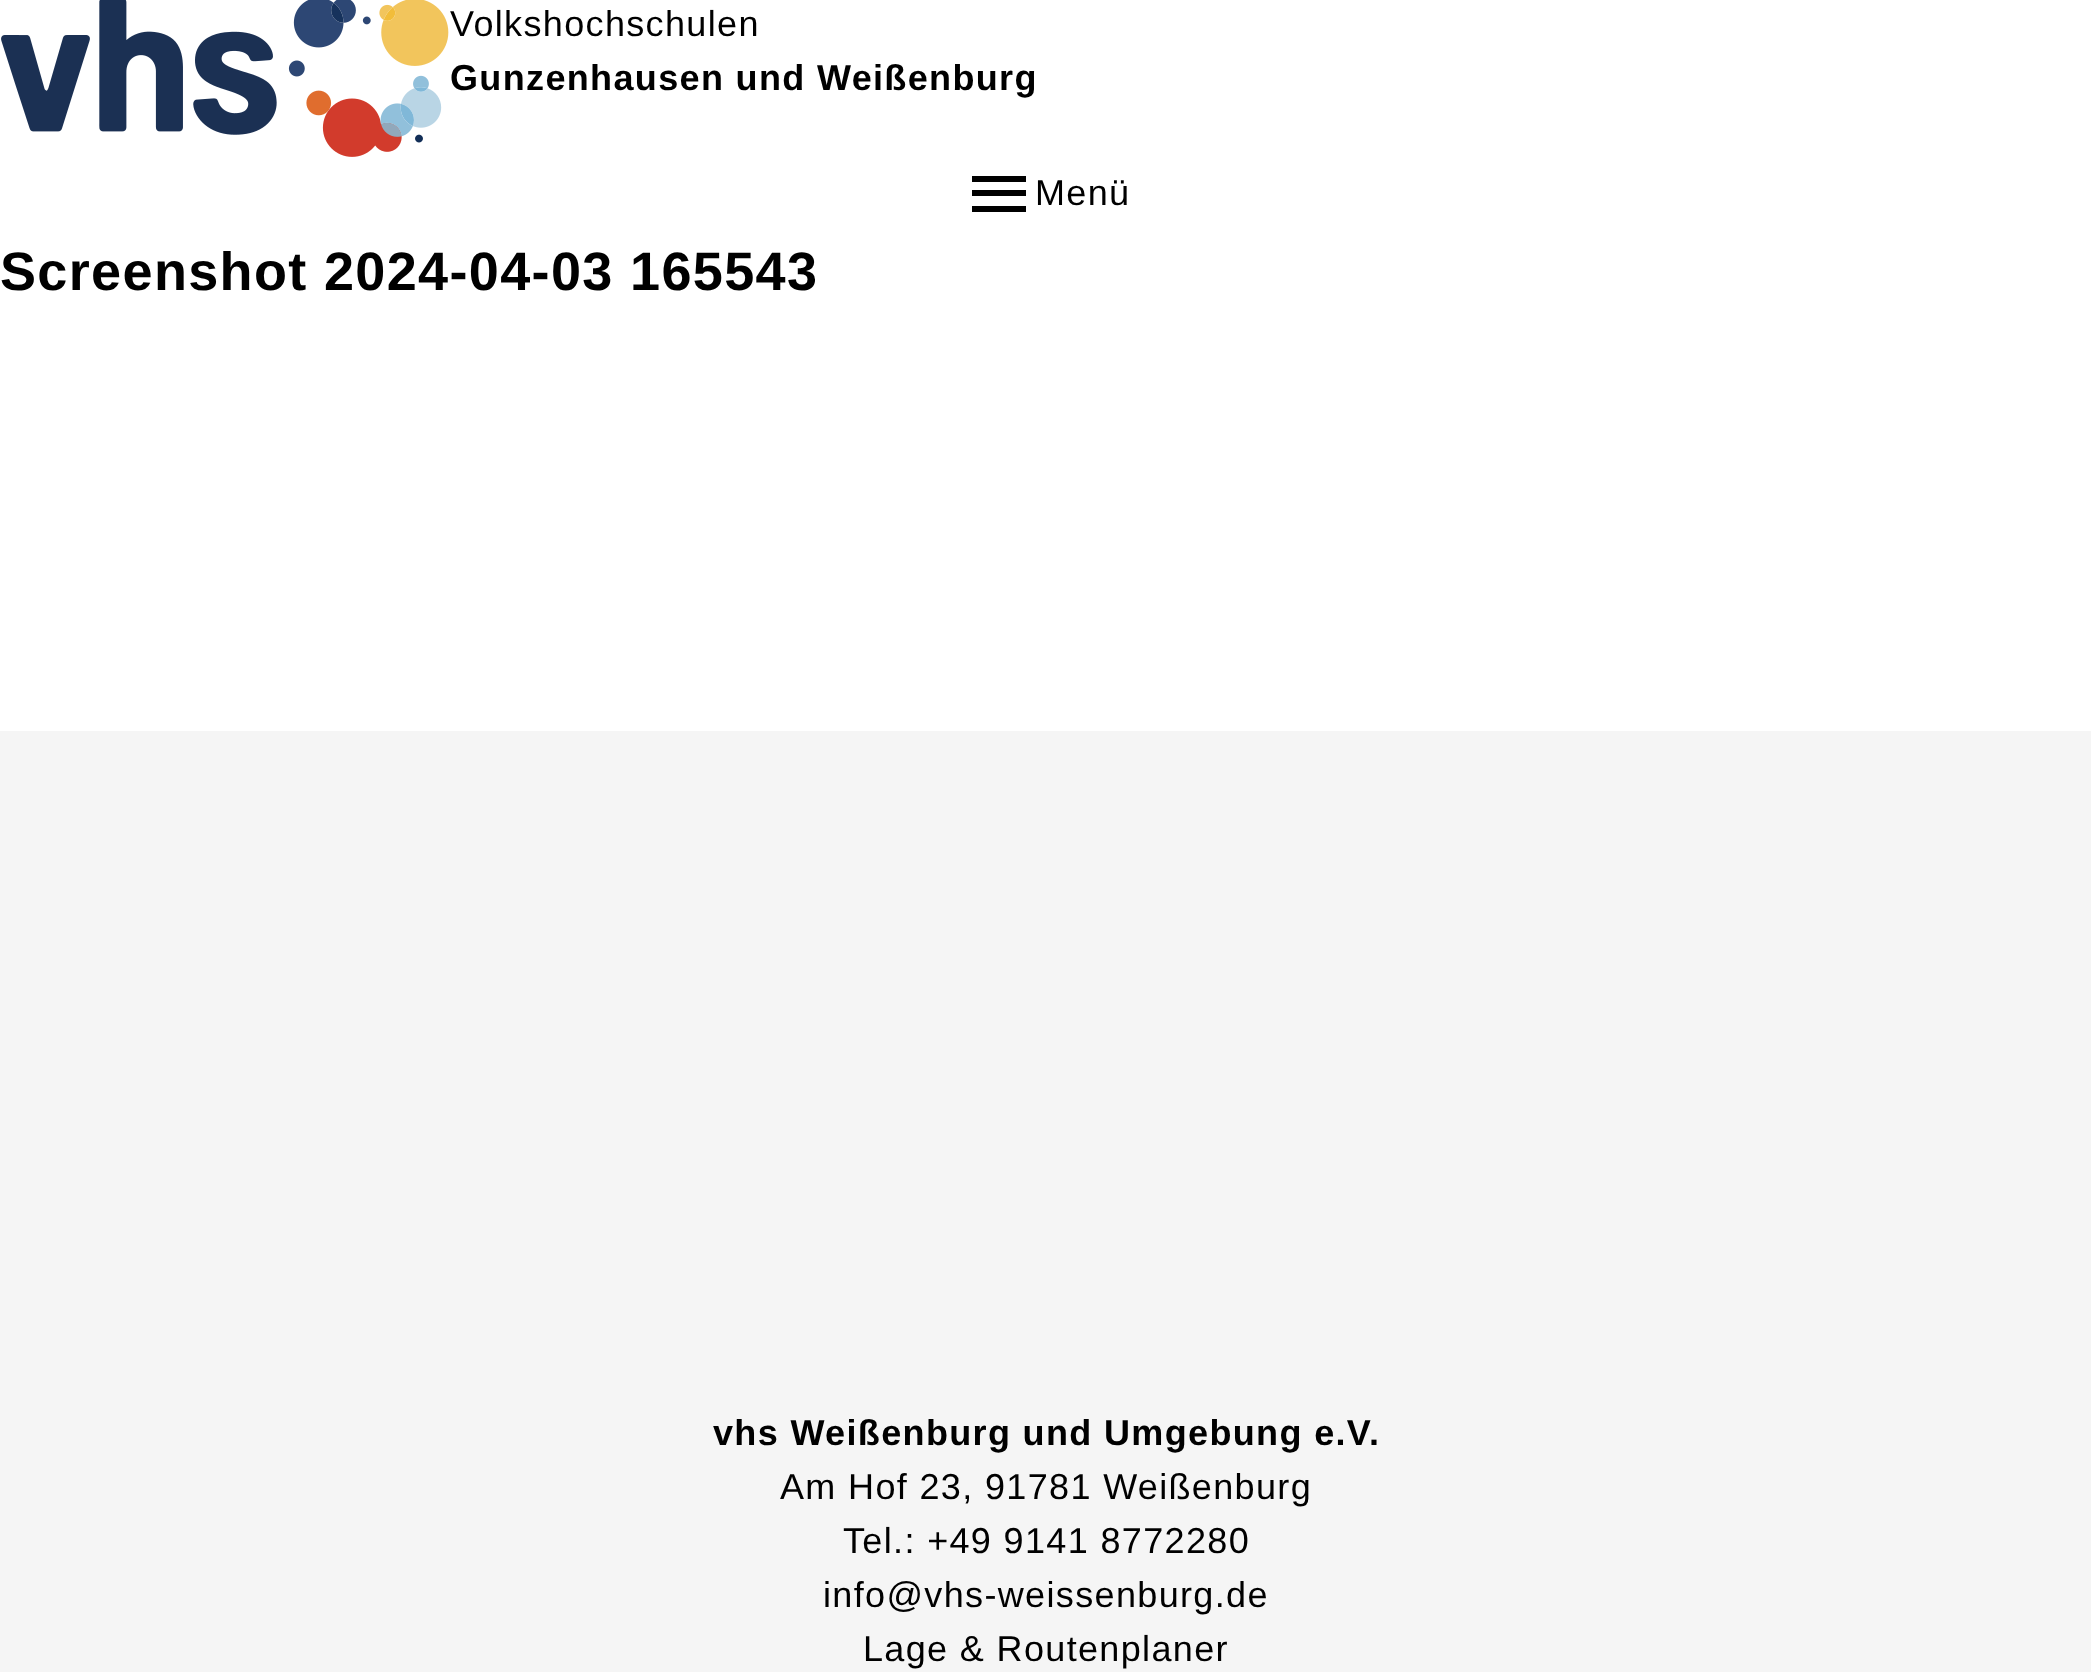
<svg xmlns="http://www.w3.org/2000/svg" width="2091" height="1672">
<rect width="100%" height="100%" fill="#fff"/>
<image x="1" y="0" width="448" height="157" href="media/1.png"/>
<text x="450" y="36" style="font-family:Liberation Sans;font-size:36px;letter-spacing:1.35px;fill:#000">Volkshochschulen</text>
<text x="450" y="90" style="font-family:Liberation Sans;font-size:36px;font-weight:bold;letter-spacing:1.35px;fill:#000">Gunzenhausen und Weißenburg</text>
<path d="M972 176h54v6h-54v-6m0 14h54v6h-54v-6m0 16h54v6h-54z" fill="#000"/>
<text x="1035" y="205" style="font-family:Liberation Sans;font-size:36px;letter-spacing:1.35px;fill:#000">Menü</text>
<text x="0" y="290" style="font-family:Liberation Sans;font-size:54px;font-weight:bold;letter-spacing:1.35px;fill:#000">Screenshot 2024-04-03 165543</text>
<rect y="731" width="2091" height="941" fill="#f5f5f5"/>
<text x="713" y="1445" style="font-family:Liberation Sans;font-size:36px;font-weight:bold;letter-spacing:1.35px;fill:#000">vhs Weißenburg und Umgebung e.V.</text>
<text x="780" y="1499" style="font-family:Liberation Sans;font-size:36px;letter-spacing:1.35px;fill:#000">Am Hof 23, 91781 Weißenburg</text>
<text x="843" y="1553" style="font-family:Liberation Sans;font-size:36px;letter-spacing:1.35px;fill:#000">Tel.: +49 9141 8772280</text>
<text x="823" y="1607" style="font-family:Liberation Sans;font-size:36px;letter-spacing:1.35px;fill:#000">info@vhs-weissenburg.de</text>
<text x="863" y="1661" style="font-family:Liberation Sans;font-size:36px;letter-spacing:1.35px;fill:#000">Lage &amp; Routenplaner</text>
</svg>
